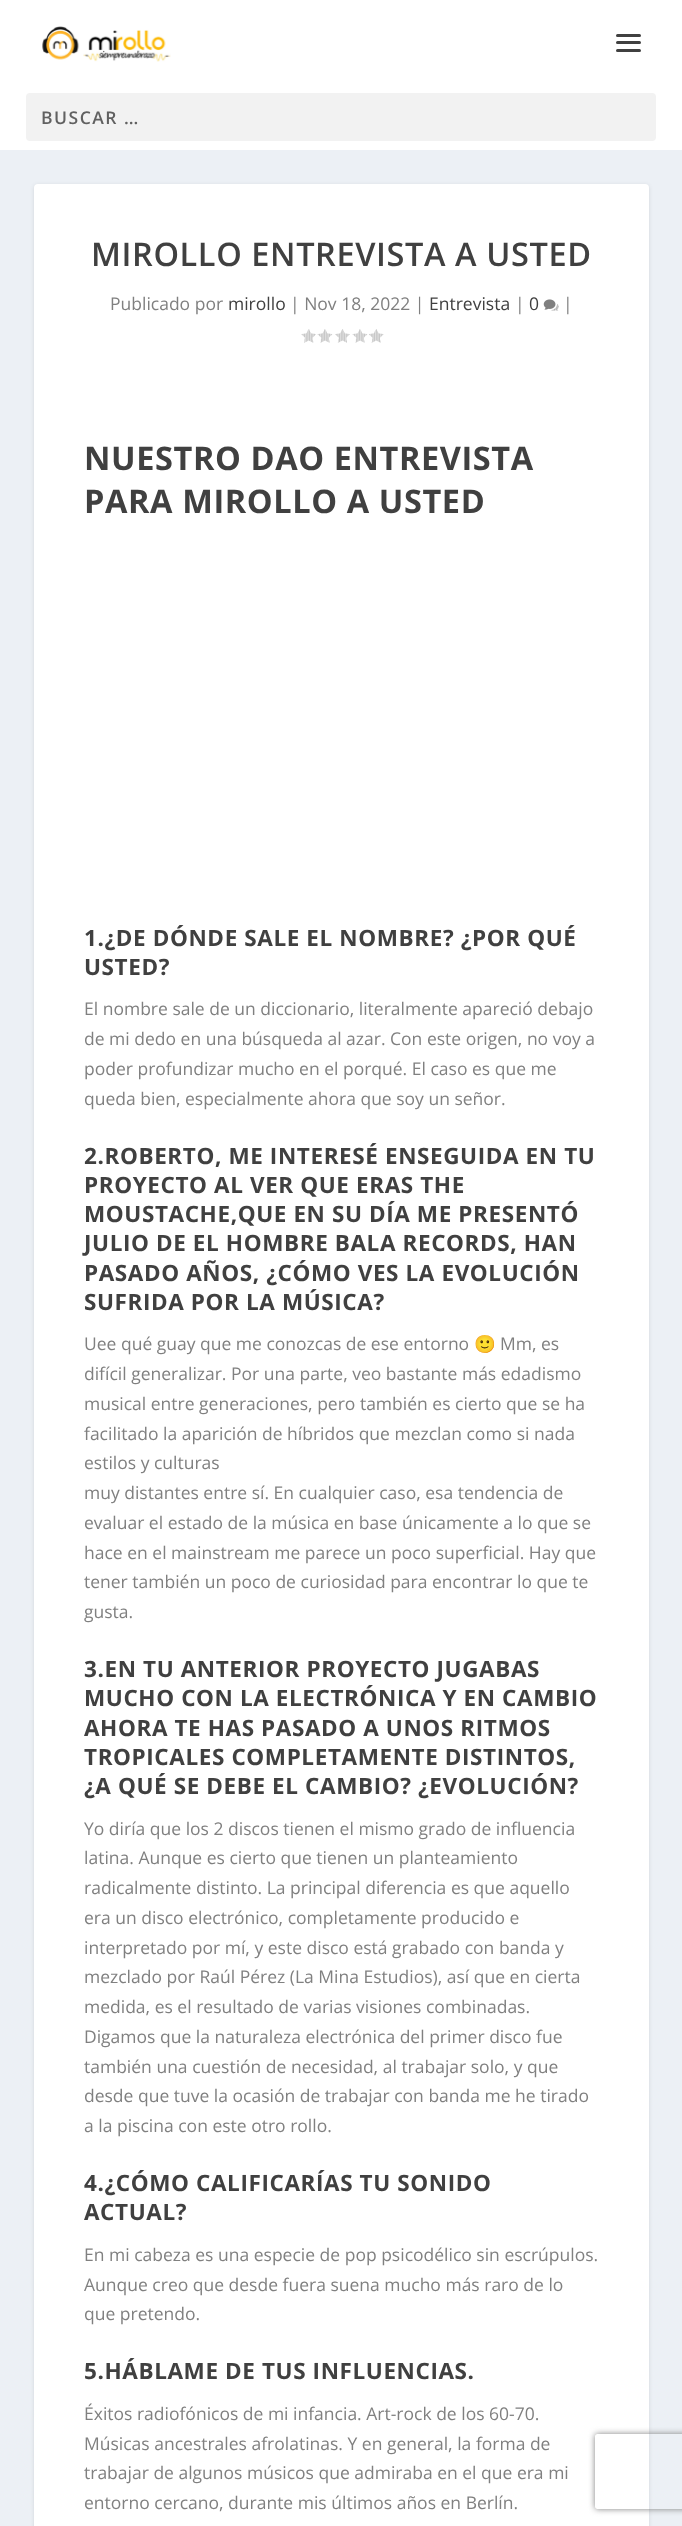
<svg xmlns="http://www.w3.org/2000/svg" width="682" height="2526">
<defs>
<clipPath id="clip1"><path d="M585 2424h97v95h-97zm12.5 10h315c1.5 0 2.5 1 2.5 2.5v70c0 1.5-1 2.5-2.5 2.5h-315c-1.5 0-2.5-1-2.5-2.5v-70c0-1.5 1-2.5 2.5-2.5z" clip-rule="evenodd"/></clipPath>
</defs>
<rect width="100%" height="100%" fill="#ecf0f5"/>
<rect width="682" height="150" fill="#fff"/>
<image x="42" y="26" width="129" height="36" href="media/1.png"/>
<rect x="616" y="34" width="25" height="3" rx="1.5" fill="#404040"/>
<rect x="616" y="41" width="25" height="3" rx="1.5" fill="#404040"/>
<rect x="616" y="49" width="25" height="3" rx="1.5" fill="#404040"/>
<rect x="26" y="93" width="630" height="48" rx="4" fill="#f2f2f2"/>
<text x="41" y="124" style="font-family:Open Sans;font-size:17.5px;font-weight:600;letter-spacing:1.5px;fill:#616161">BUSCAR …</text>
<rect x="34" y="185" width="615" height="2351" rx="4" fill="#0000001a" filter="blur(2px)"/>
<rect x="34" y="184" width="615" height="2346" rx="4" fill="#fff"/>
<text x="91" y="266" style="font-family:Open Sans;font-size:32.5px;font-weight:600;letter-spacing:0.6px;fill:#404040">MIROLLO ENTREVISTA A USTED</text>
<text x="110" y="310" style="font-family:Open Sans;font-size:17.5px;fill:#808080">Publicado por</text>
<text x="228" y="310" style="font-family:Open Sans;font-size:17.5px;fill:#404040">mirollo</text>
<text x="290" y="310" style="font-family:Open Sans;font-size:17.5px;fill:#808080">| Nov 18, 2022 |</text>
<text x="429" y="310" style="font-family:Open Sans;font-size:17.5px;fill:#404040">Entrevista</text>
<text x="515" y="310" style="font-family:Open Sans;font-size:17.5px;fill:#808080">|</text>
<text x="529" y="310" style="font-family:Open Sans;font-size:17.5px;fill:#404040">0</text>
<image x="543" y="299" width="16" height="12" href="media/2.png"/>
<text x="563" y="310" style="font-family:Open Sans;font-size:17.5px;fill:#808080">|</text>
<image x="301" y="329" width="15" height="14" href="media/3.png"/>
<image x="317" y="329" width="16" height="14" href="media/4.png"/>
<image x="335" y="329" width="15" height="14" href="media/5.png"/>
<image x="352" y="329" width="16" height="14" href="media/4.png"/>
<image x="369" y="329" width="15" height="14" href="media/6.png"/>
<text x="84" y="470" style="font-family:Open Sans;font-size:32.5px;font-weight:bold;letter-spacing:0.6px;fill:#404040">NUESTRO DAO ENTREVISTA</text>
<text x="84" y="513" style="font-family:Open Sans;font-size:32.5px;font-weight:bold;letter-spacing:0.6px;fill:#404040">PARA MIROLLO A USTED</text>
<text x="84" y="946" style="font-family:Open Sans;font-size:22.5px;font-weight:bold;letter-spacing:0.6px;fill:#404040">1.¿DE DÓNDE SALE EL NOMBRE? ¿POR QUÉ</text>
<text x="84" y="975" style="font-family:Open Sans;font-size:22.5px;font-weight:bold;letter-spacing:0.6px;fill:#404040">USTED?</text>
<text x="84" y="1015" style="font-family:Open Sans;font-size:17.5px;fill:#808080">El nombre sale de un diccionario, literalmente apareció debajo</text>
<text x="84" y="1045" style="font-family:Open Sans;font-size:17.5px;fill:#808080">de mi dedo en una búsqueda al azar. Con este origen, no voy a</text>
<text x="84" y="1075" style="font-family:Open Sans;font-size:17.5px;fill:#808080">poder profundizar mucho en el porqué. El caso es que me</text>
<text x="84" y="1105" style="font-family:Open Sans;font-size:17.5px;fill:#808080">queda bien, especialmente ahora que soy un señor.</text>
<text x="84" y="1164" style="font-family:Open Sans;font-size:22.5px;font-weight:bold;letter-spacing:0.6px;fill:#404040">2.ROBERTO, ME INTERESÉ ENSEGUIDA EN TU</text>
<text x="84" y="1193" style="font-family:Open Sans;font-size:22.5px;font-weight:bold;letter-spacing:0.6px;fill:#404040">PROYECTO AL VER QUE ERAS THE</text>
<text x="84" y="1222" style="font-family:Open Sans;font-size:22.5px;font-weight:bold;letter-spacing:0.6px;fill:#404040">MOUSTACHE,QUE EN SU DÍA ME PRESENTÓ</text>
<text x="84" y="1251" style="font-family:Open Sans;font-size:22.5px;font-weight:bold;letter-spacing:0.6px;fill:#404040">JULIO DE EL HOMBRE BALA RECORDS, HAN</text>
<text x="84" y="1281" style="font-family:Open Sans;font-size:22.5px;font-weight:bold;letter-spacing:0.6px;fill:#404040">PASADO AÑOS, ¿CÓMO VES LA EVOLUCIÓN</text>
<text x="84" y="1310" style="font-family:Open Sans;font-size:22.5px;font-weight:bold;letter-spacing:0.6px;fill:#404040">SUFRIDA POR LA MÚSICA?</text>
<text x="84" y="1350" style="font-family:Open Sans;font-size:17.5px;fill:#808080">Uee qué guay que me conozcas de ese entorno</text>
<text x="474" y="1350" style="font-family:Noto Color Emoji;font-size:17.5px;fill:#808080">🙂</text>
<text x="500" y="1350" style="font-family:Open Sans;font-size:17.5px;fill:#808080">Mm, es</text>
<text x="84" y="1380" style="font-family:Open Sans;font-size:17.5px;fill:#808080">difícil generalizar. Por una parte, veo bastante más edadismo</text>
<text x="84" y="1410" style="font-family:Open Sans;font-size:17.5px;fill:#808080">musical entre generaciones, pero también es cierto que se ha</text>
<text x="84" y="1440" style="font-family:Open Sans;font-size:17.5px;fill:#808080">facilitado la aparición de híbridos que mezclan como si nada</text>
<text x="84" y="1469" style="font-family:Open Sans;font-size:17.5px;fill:#808080">estilos y culturas</text>
<text x="84" y="1499" style="font-family:Open Sans;font-size:17.5px;fill:#808080">muy distantes entre sí. En cualquier caso, esa tendencia de</text>
<text x="84" y="1529" style="font-family:Open Sans;font-size:17.5px;fill:#808080">evaluar el estado de la música en base únicamente a lo que se</text>
<text x="84" y="1559" style="font-family:Open Sans;font-size:17.5px;fill:#808080">hace en el mainstream me parece un poco superficial. Hay que</text>
<text x="84" y="1588" style="font-family:Open Sans;font-size:17.5px;fill:#808080">tener también un poco de curiosidad para encontrar lo que te</text>
<text x="84" y="1618" style="font-family:Open Sans;font-size:17.5px;fill:#808080">gusta.</text>
<text x="84" y="1677" style="font-family:Open Sans;font-size:22.5px;font-weight:bold;letter-spacing:0.6px;fill:#404040">3.EN TU ANTERIOR PROYECTO JUGABAS</text>
<text x="84" y="1706" style="font-family:Open Sans;font-size:22.5px;font-weight:bold;letter-spacing:0.6px;fill:#404040">MUCHO CON LA ELECTRÓNICA Y EN CAMBIO</text>
<text x="84" y="1736" style="font-family:Open Sans;font-size:22.5px;font-weight:bold;letter-spacing:0.6px;fill:#404040">AHORA TE HAS PASADO A UNOS RITMOS</text>
<text x="84" y="1765" style="font-family:Open Sans;font-size:22.5px;font-weight:bold;letter-spacing:0.6px;fill:#404040">TROPICALES COMPLETAMENTE DISTINTOS,</text>
<text x="84" y="1794" style="font-family:Open Sans;font-size:22.5px;font-weight:bold;letter-spacing:0.6px;fill:#404040">¿A QUÉ SE DEBE EL CAMBIO? ¿EVOLUCIÓN?</text>
<text x="84" y="1835" style="font-family:Open Sans;font-size:17.5px;fill:#808080">Yo diría que los 2 discos tienen el mismo grado de influencia</text>
<text x="84" y="1864" style="font-family:Open Sans;font-size:17.5px;fill:#808080">latina. Aunque es cierto que tienen un planteamiento</text>
<text x="84" y="1894" style="font-family:Open Sans;font-size:17.5px;fill:#808080">radicalmente distinto. La principal diferencia es que aquello</text>
<text x="84" y="1924" style="font-family:Open Sans;font-size:17.5px;fill:#808080">era un disco electrónico, completamente producido e</text>
<text x="84" y="1954" style="font-family:Open Sans;font-size:17.5px;fill:#808080">interpretado por mí, y este disco está grabado con banda y</text>
<text x="84" y="1983" style="font-family:Open Sans;font-size:17.5px;fill:#808080">mezclado por Raúl Pérez (La Mina Estudios), así que en cierta</text>
<text x="84" y="2013" style="font-family:Open Sans;font-size:17.5px;fill:#808080">medida, es el resultado de varias visiones combinadas.</text>
<text x="84" y="2043" style="font-family:Open Sans;font-size:17.5px;fill:#808080">Digamos que la naturaleza electrónica del primer disco fue</text>
<text x="84" y="2073" style="font-family:Open Sans;font-size:17.5px;fill:#808080">también una cuestión de necesidad, al trabajar solo, y que</text>
<text x="84" y="2102" style="font-family:Open Sans;font-size:17.5px;fill:#808080">desde que tuve la ocasión de trabajar con banda me he tirado</text>
<text x="84" y="2132" style="font-family:Open Sans;font-size:17.5px;fill:#808080">a la piscina con este otro rollo.</text>
<text x="84" y="2191" style="font-family:Open Sans;font-size:22.5px;font-weight:bold;letter-spacing:0.6px;fill:#404040">4.¿CÓMO CALIFICARÍAS TU SONIDO</text>
<text x="84" y="2220" style="font-family:Open Sans;font-size:22.5px;font-weight:bold;letter-spacing:0.6px;fill:#404040">ACTUAL?</text>
<text x="84" y="2261" style="font-family:Open Sans;font-size:17.5px;fill:#808080">En mi cabeza es una especie de pop psicodélico sin escrúpulos.</text>
<text x="84" y="2291" style="font-family:Open Sans;font-size:17.5px;fill:#808080">Aunque creo que desde fuera suena mucho más raro de lo</text>
<text x="84" y="2320" style="font-family:Open Sans;font-size:17.5px;fill:#808080">que pretendo.</text>
<text x="84" y="2379" style="font-family:Open Sans;font-size:22.5px;font-weight:bold;letter-spacing:0.6px;fill:#404040">5.HÁBLAME DE TUS INFLUENCIAS.</text>
<text x="84" y="2420" style="font-family:Open Sans;font-size:17.5px;fill:#808080">Éxitos radiofónicos de mi infancia. Art-rock de los 60-70.</text>
<text x="84" y="2450" style="font-family:Open Sans;font-size:17.5px;fill:#808080">Músicas ancestrales afrolatinas. Y en general, la forma de</text>
<text x="84" y="2479" style="font-family:Open Sans;font-size:17.5px;fill:#808080">trabajar de algunos músicos que admiraba en el que era mi</text>
<text x="84" y="2509" style="font-family:Open Sans;font-size:17.5px;fill:#808080">entorno cercano, durante mis últimos años en Berlín.</text>
<g clip-path="url(#clip1)">
<rect x="595" y="2434" width="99" height="75" rx="2.5" fill="#808080" filter="blur(3px)"/>
</g>
</svg>
